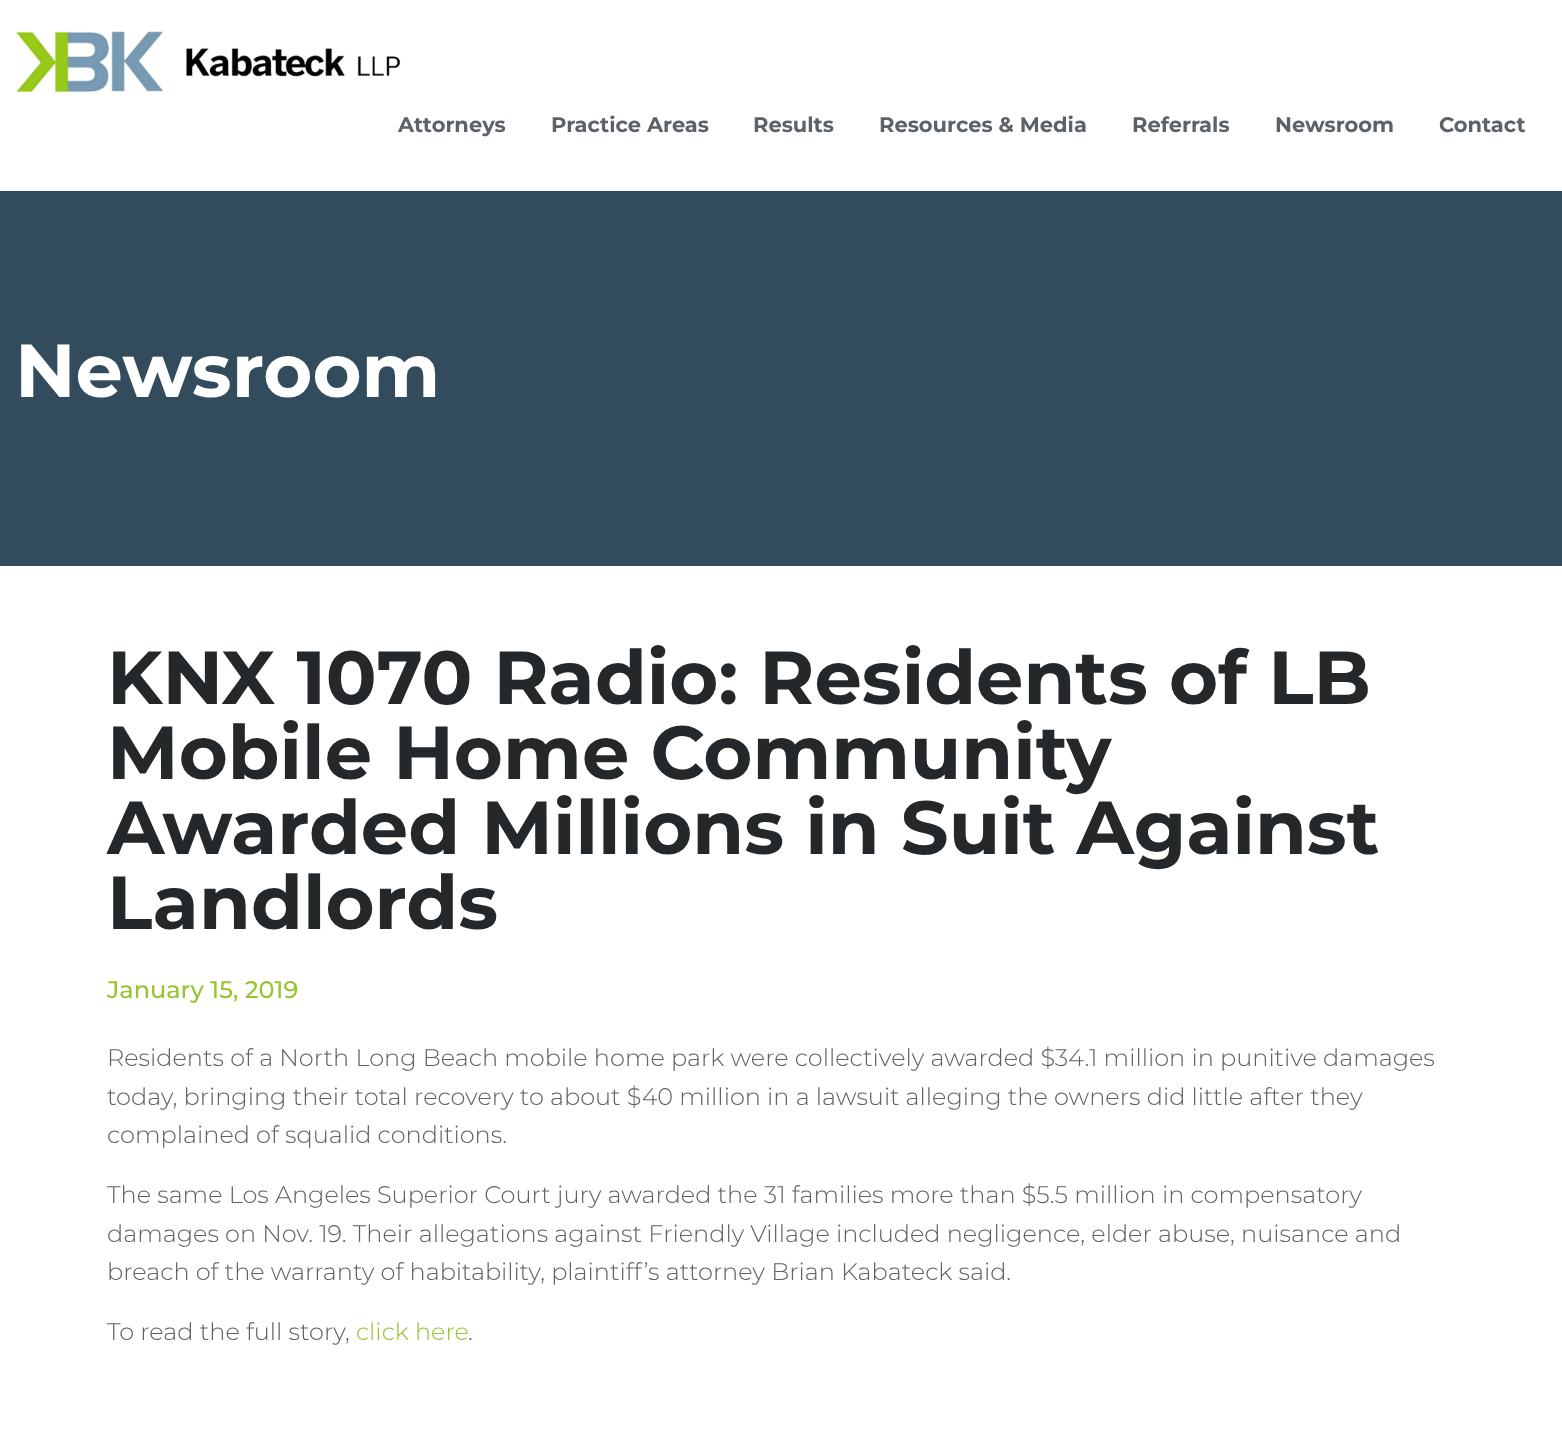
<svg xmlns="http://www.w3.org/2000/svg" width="1562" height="1429">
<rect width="100%" height="100%" fill="#fff"/>
<image x="16" y="31" width="385" height="62" href="media/1.png"/>
<text x="398" y="132" style="font-family:Montserrat;font-size:21px;font-weight:bold;fill:#5c6267">Attorneys</text>
<text x="551" y="132" style="font-family:Montserrat;font-size:21px;font-weight:bold;fill:#5c6267">Practice Areas</text>
<text x="753" y="132" style="font-family:Montserrat;font-size:21px;font-weight:bold;fill:#5c6267">Results</text>
<text x="879" y="132" style="font-family:Montserrat;font-size:21px;font-weight:bold;fill:#5c6267">Resources &amp; Media</text>
<text x="1132" y="132" style="font-family:Montserrat;font-size:21px;font-weight:bold;fill:#5c6267">Referrals</text>
<text x="1275" y="132" style="font-family:Montserrat;font-size:21px;font-weight:bold;fill:#5c6267">Newsroom</text>
<text x="1439" y="132" style="font-family:Montserrat;font-size:21px;font-weight:bold;fill:#5c6267">Contact</text>
<rect y="191" width="1562" height="375" fill="#324b5d"/>
<text x="15" y="397" style="font-family:Montserrat;font-size:75px;font-weight:bold;fill:#fff">Newsroom</text>
<text x="107" y="704" style="font-family:Montserrat;font-size:75px;font-weight:bold;fill:#25282b">KNX 1070 Radio: Residents of LB</text>
<text x="107" y="779" style="font-family:Montserrat;font-size:75px;font-weight:bold;fill:#25282b">Mobile Home Community</text>
<text x="107" y="854" style="font-family:Montserrat;font-size:75px;font-weight:bold;fill:#25282b">Awarded Millions in Suit Against</text>
<text x="107" y="929" style="font-family:Montserrat;font-size:75px;font-weight:bold;fill:#25282b">Landlords</text>
<text x="107" y="998" style="font-family:Montserrat;font-size:24px;font-weight:500;fill:#97c431">January 15, 2019</text>
<text x="107" y="1066" style="font-family:Montserrat;font-size:24px;font-weight:300;fill:#5c6267">Residents of a North Long Beach mobile home park were collectively awarded $34.1 million in punitive damages</text>
<text x="107" y="1105" style="font-family:Montserrat;font-size:24px;font-weight:300;fill:#5c6267">today, bringing their total recovery to about $40 million in a lawsuit alleging the owners did little after they</text>
<text x="107" y="1143" style="font-family:Montserrat;font-size:24px;font-weight:300;fill:#5c6267">complained of squalid conditions.</text>
<text x="107" y="1203" style="font-family:Montserrat;font-size:24px;font-weight:300;fill:#5c6267">The same Los Angeles Superior Court jury awarded the 31 families more than $5.5 million in compensatory</text>
<text x="107" y="1242" style="font-family:Montserrat;font-size:24px;font-weight:300;fill:#5c6267">damages on Nov. 19. Their allegations against Friendly Village included negligence, elder abuse, nuisance and</text>
<text x="107" y="1280" style="font-family:Montserrat;font-size:24px;font-weight:300;fill:#5c6267">breach of the warranty of habitability, plaintiff’s attorney Brian Kabateck said.</text>
<text x="107" y="1340" style="font-family:Montserrat;font-size:24px;font-weight:300;fill:#5c6267">To read the full story,</text>
<text x="356" y="1340" style="font-family:Montserrat;font-size:24px;font-weight:300;fill:#97c431">click here</text>
<text x="468" y="1340" style="font-family:Montserrat;font-size:24px;font-weight:300;fill:#5c6267">.</text>
</svg>
